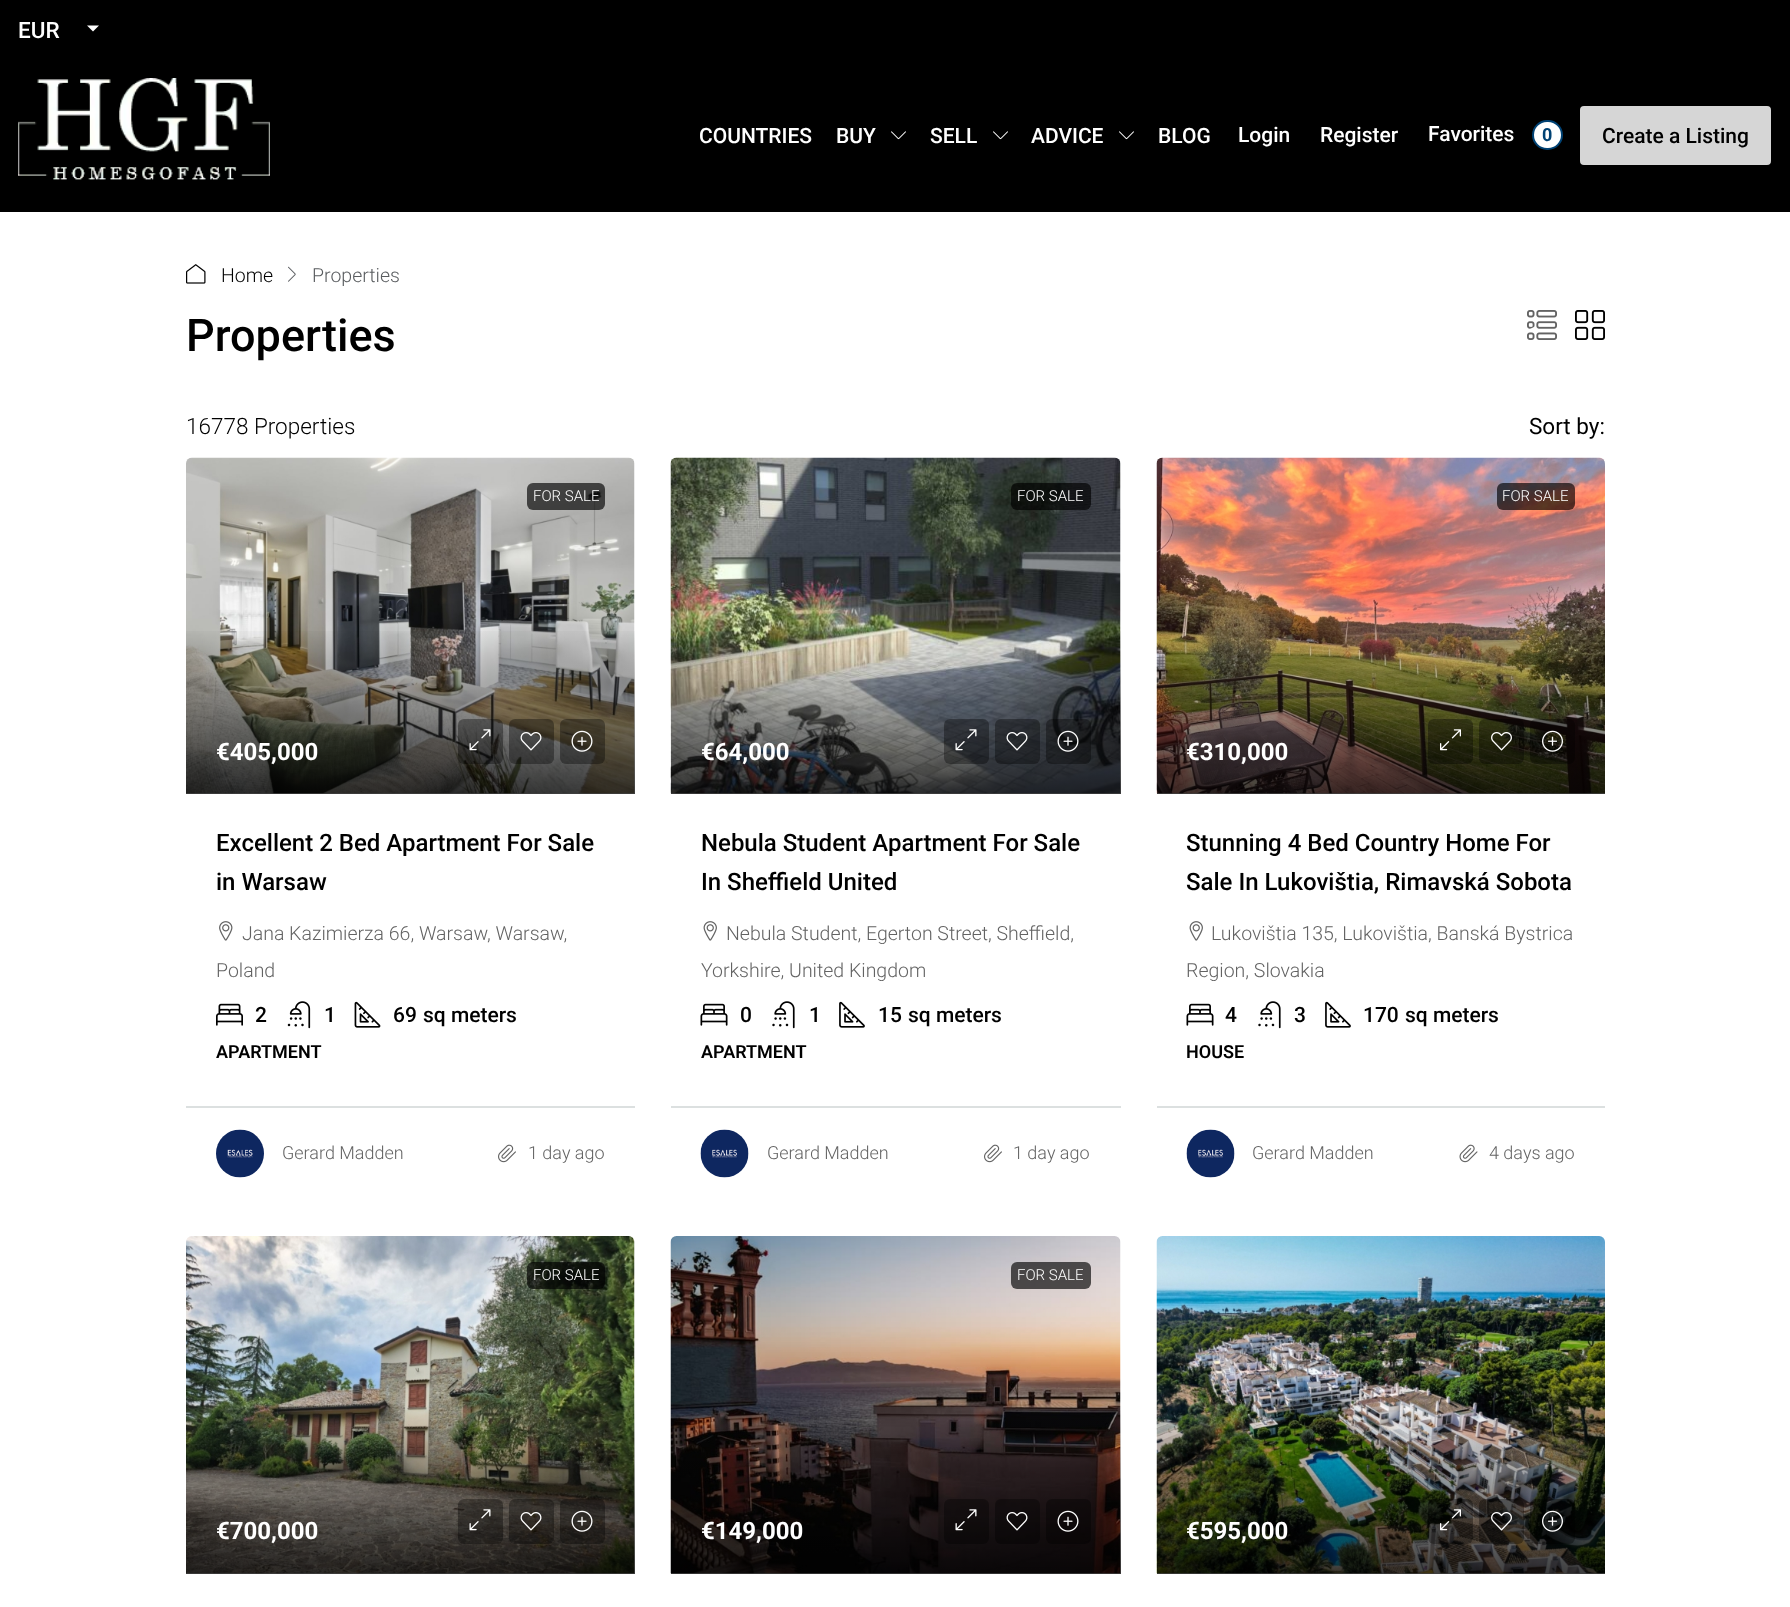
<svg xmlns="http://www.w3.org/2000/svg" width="1790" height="1607">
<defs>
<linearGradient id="g1" gradientUnits="userSpaceOnUse" x1="410" y1="458" x2="410" y2="794"><stop offset="0" stop-color="#000" stop-opacity="0"/><stop offset="0.5" stop-color="#000" stop-opacity="0"/><stop offset="1" stop-color="#000" stop-opacity="0.75"/></linearGradient>
<linearGradient id="g2" gradientUnits="userSpaceOnUse" x1="896" y1="458" x2="896" y2="794"><stop offset="0" stop-color="#000" stop-opacity="0"/><stop offset="0.5" stop-color="#000" stop-opacity="0"/><stop offset="1" stop-color="#000" stop-opacity="0.75"/></linearGradient>
<linearGradient id="g3" gradientUnits="userSpaceOnUse" x1="1381" y1="458" x2="1381" y2="794"><stop offset="0" stop-color="#000" stop-opacity="0"/><stop offset="0.5" stop-color="#000" stop-opacity="0"/><stop offset="1" stop-color="#000" stop-opacity="0.75"/></linearGradient>
<linearGradient id="g4" gradientUnits="userSpaceOnUse" x1="410" y1="1236" x2="410" y2="1574"><stop offset="0" stop-color="#000" stop-opacity="0"/><stop offset="0.5" stop-color="#000" stop-opacity="0"/><stop offset="1" stop-color="#000" stop-opacity="0.75"/></linearGradient>
<linearGradient id="g5" gradientUnits="userSpaceOnUse" x1="896" y1="1236" x2="896" y2="1574"><stop offset="0" stop-color="#000" stop-opacity="0"/><stop offset="0.5" stop-color="#000" stop-opacity="0"/><stop offset="1" stop-color="#000" stop-opacity="0.75"/></linearGradient>
<linearGradient id="g6" gradientUnits="userSpaceOnUse" x1="1381" y1="1236" x2="1381" y2="1574"><stop offset="0" stop-color="#000" stop-opacity="0"/><stop offset="0.5" stop-color="#000" stop-opacity="0"/><stop offset="1" stop-color="#000" stop-opacity="0.75"/></linearGradient>
</defs>
<rect width="100%" height="100%" fill="#fff"/>
<rect width="1790" height="212" fill="#000"/>
<text x="18" y="38" style="font-family:Roboto;font-size:22.5px;font-weight:500;fill:#fff">EUR</text>
<path d="M87 25.5h12l-6 6z" fill="#fff"/>
<image x="18" y="78" width="252" height="102" href="media/1.png"/>
<text x="699" y="143" style="font-family:Roboto;font-size:21px;font-weight:500;fill:#fff">COUNTRIES</text>
<text x="836" y="143" style="font-family:Roboto;font-size:21px;font-weight:500;fill:#fff">BUY</text>
<image x="891" y="131" width="15" height="9" href="media/2.png"/>
<text x="930" y="143" style="font-family:Roboto;font-size:21px;font-weight:500;fill:#fff">SELL</text>
<image x="993" y="131" width="15" height="9" href="media/2.png"/>
<text x="1031" y="143" style="font-family:Roboto;font-size:21px;font-weight:500;fill:#fff">ADVICE</text>
<image x="1119" y="131" width="15" height="9" href="media/2.png"/>
<text x="1158" y="143" style="font-family:Roboto;font-size:21px;font-weight:500;fill:#fff">BLOG</text>
<text x="1238" y="142" style="font-family:Roboto;font-size:21px;font-weight:500;fill:#fff">Login</text>
<text x="1320" y="142" style="font-family:Roboto;font-size:21px;font-weight:500;fill:#fff">Register</text>
<text x="1428" y="141" style="font-family:Roboto;font-size:21px;font-weight:500;fill:#fff">Favorites</text>
<rect x="1533" y="121" width="29" height="28" rx="14" fill="#fff" stroke="#004274" stroke-width="2"/>
<text x="1542" y="141" style="font-family:Roboto;font-size:18px;font-weight:bold;fill:#004274">0</text>
<rect x="1579" y="105" width="193" height="61" rx="5" fill="#d6d6d6" stroke="#000" stroke-width="2"/>
<text x="1602" y="143" style="font-family:Roboto;font-size:21px;font-weight:500;fill:#000">Create a Listing</text>
<image x="186" y="264" width="20" height="20" href="media/3.png"/>
<text x="221" y="282" style="font-family:Roboto;font-size:19.5px;font-weight:300;fill:#000">Home</text>
<image x="288" y="266" width="8" height="16" href="media/4.png"/>
<text x="312" y="282" style="font-family:Roboto;font-size:19.5px;font-weight:300;fill:#595c5f">Properties</text>
<text x="186" y="351" style="font-family:Roboto;font-size:45px;font-weight:500;fill:#000">Properties</text>
<image x="1527" y="310" width="30" height="30" href="media/5.png"/>
<image x="1575" y="310" width="30" height="30" href="media/6.png"/>
<text x="186" y="434" style="font-family:Roboto;font-size:22.5px;font-weight:300;fill:#000">16778 Properties</text>
<text x="1529" y="434" style="font-family:Roboto;font-size:22.5px;fill:#000">Sort by:</text>
<image x="186" y="457" width="449" height="337" href="media/7.png"/>
<rect x="186" y="631" width="449" height="163" fill="url(#g1)"/>
<rect x="527" y="483" width="78" height="27" rx="6" fill="#000000a6"/>
<text x="533" y="501" style="font-family:Roboto;font-size:15px;font-weight:300;fill:#fff">FOR SALE</text>
<text x="216" y="760" style="font-family:Roboto;font-size:24px;font-weight:bold;fill:#fff">€405,000</text>
<rect x="458" y="719" width="45" height="45" rx="6" fill="#00000059"/>
<image x="469" y="729" width="22" height="22" href="media/8.png"/>
<rect x="509" y="719" width="45" height="45" rx="6" fill="#00000059"/>
<image x="520" y="732" width="22" height="19" href="media/9.png"/>
<rect x="560" y="719" width="45" height="45" rx="6" fill="#00000059"/>
<image x="571" y="730" width="22" height="22" href="media/10.png"/>
<text x="216" y="851" style="font-family:Roboto;font-size:24px;font-weight:500;fill:#000">Excellent 2 Bed Apartment For Sale</text>
<text x="216" y="890" style="font-family:Roboto;font-size:24px;font-weight:500;fill:#000">in Warsaw</text>
<image x="219" y="921" width="14" height="20" href="media/11.png"/>
<text x="242" y="940" style="font-family:Roboto;font-size:19.5px;font-weight:300;fill:#636363">Jana Kazimierza 66, Warsaw, Warsaw,</text>
<text x="216" y="977" style="font-family:Roboto;font-size:19.5px;font-weight:300;fill:#636363">Poland</text>
<image x="216" y="1003" width="27" height="23" href="media/12.png"/>
<text x="255" y="1022" style="font-family:Roboto;font-size:21px;font-weight:500;fill:#000">2</text>
<image x="287" y="1001" width="24" height="28" href="media/13.png"/>
<text x="324" y="1022" style="font-family:Roboto;font-size:21px;font-weight:500;fill:#000">1</text>
<image x="354" y="1001" width="27" height="27" href="media/14.png"/>
<text x="393" y="1022" style="font-family:Roboto;font-size:21px;font-weight:500;fill:#000">69</text>
<text x="423" y="1022" style="font-family:Roboto;font-size:21px;font-weight:500;fill:#000">sq meters</text>
<text x="216" y="1058" style="font-family:Roboto;font-size:18px;font-weight:600;fill:#000">APARTMENT</text>
<rect x="186" y="1106" width="449" height="2" fill="#dce0e0"/>
<image x="216" y="1129" width="48" height="49" href="media/15.png"/>
<text x="282" y="1159" style="font-family:Roboto;font-size:18px;font-weight:300;fill:#636363">Gerard Madden</text>
<image x="498" y="1144" width="18" height="19" href="media/16.png"/>
<text x="528" y="1159" style="font-family:Roboto;font-size:18px;font-weight:300;fill:#636363">1 day ago</text>
<image x="670" y="457" width="451" height="337" href="media/17.png"/>
<rect x="671" y="631" width="450" height="163" fill="url(#g2)"/>
<rect x="1011" y="483" width="80" height="27" rx="6" fill="#000000a6"/>
<text x="1017" y="501" style="font-family:Roboto;font-size:15px;font-weight:300;fill:#fff">FOR SALE</text>
<text x="701" y="760" style="font-family:Roboto;font-size:24px;font-weight:bold;fill:#fff">€64,000</text>
<rect x="944" y="719" width="45" height="45" rx="6" fill="#00000059"/>
<image x="955" y="729" width="22" height="22" href="media/18.png"/>
<rect x="995" y="719" width="45" height="45" rx="6" fill="#00000059"/>
<image x="1006" y="732" width="22" height="19" href="media/19.png"/>
<rect x="1046" y="719" width="45" height="45" rx="6" fill="#00000059"/>
<image x="1057" y="730" width="22" height="22" href="media/20.png"/>
<text x="701" y="851" style="font-family:Roboto;font-size:24px;font-weight:500;fill:#000">Nebula Student Apartment For Sale</text>
<text x="701" y="890" style="font-family:Roboto;font-size:24px;font-weight:500;fill:#000">In Sheffield United</text>
<image x="703" y="921" width="14" height="20" href="media/21.png"/>
<text x="726" y="940" style="font-family:Roboto;font-size:19.5px;font-weight:300;fill:#636363">Nebula Student, Egerton Street, Sheffield,</text>
<text x="701" y="977" style="font-family:Roboto;font-size:19.5px;font-weight:300;fill:#636363">Yorkshire, United Kingdom</text>
<image x="700" y="1003" width="28" height="23" href="media/22.png"/>
<text x="740" y="1022" style="font-family:Roboto;font-size:21px;font-weight:500;fill:#000">0</text>
<image x="772" y="1001" width="23" height="28" href="media/23.png"/>
<text x="809" y="1022" style="font-family:Roboto;font-size:21px;font-weight:500;fill:#000">1</text>
<image x="839" y="1001" width="26" height="27" href="media/24.png"/>
<text x="878" y="1022" style="font-family:Roboto;font-size:21px;font-weight:500;fill:#000">15</text>
<text x="908" y="1022" style="font-family:Roboto;font-size:21px;font-weight:500;fill:#000">sq meters</text>
<text x="701" y="1058" style="font-family:Roboto;font-size:18px;font-weight:600;fill:#000">APARTMENT</text>
<rect x="671" y="1106" width="450" height="2" fill="#dce0e0"/>
<image x="700" y="1129" width="49" height="49" href="media/25.png"/>
<text x="767" y="1159" style="font-family:Roboto;font-size:18px;font-weight:300;fill:#636363">Gerard Madden</text>
<image x="984" y="1144" width="18" height="19" href="media/16.png"/>
<text x="1013" y="1159" style="font-family:Roboto;font-size:18px;font-weight:300;fill:#636363">1 day ago</text>
<image x="1156" y="457" width="449" height="337" href="media/26.png"/>
<rect x="1157" y="631" width="448" height="163" fill="url(#g3)"/>
<rect x="1497" y="483" width="78" height="27" rx="6" fill="#000000a6"/>
<text x="1502" y="501" style="font-family:Roboto;font-size:15px;font-weight:300;fill:#fff">FOR SALE</text>
<text x="1186" y="760" style="font-family:Roboto;font-size:24px;font-weight:bold;fill:#fff">€310,000</text>
<rect x="1428" y="719" width="45" height="45" rx="6" fill="#00000059"/>
<image x="1440" y="729" width="21" height="22" href="media/27.png"/>
<rect x="1479" y="719" width="45" height="45" rx="6" fill="#00000059"/>
<image x="1491" y="732" width="21" height="19" href="media/28.png"/>
<rect x="1530" y="719" width="45" height="45" rx="6" fill="#00000059"/>
<image x="1542" y="730" width="21" height="22" href="media/29.png"/>
<text x="1186" y="851" style="font-family:Roboto;font-size:24px;font-weight:500;fill:#000">Stunning 4 Bed Country Home For</text>
<text x="1186" y="890" style="font-family:Roboto;font-size:24px;font-weight:500;fill:#000">Sale In Lukovištia, Rimavská Sobota</text>
<image x="1189" y="921" width="14" height="20" href="media/21.png"/>
<text x="1211" y="940" style="font-family:Roboto;font-size:19.5px;font-weight:300;fill:#636363">Lukovištia 135, Lukovištia, Banská Bystrica</text>
<text x="1186" y="977" style="font-family:Roboto;font-size:19.5px;font-weight:300;fill:#636363">Region, Slovakia</text>
<image x="1186" y="1003" width="28" height="23" href="media/22.png"/>
<text x="1225" y="1022" style="font-family:Roboto;font-size:21px;font-weight:500;fill:#000">4</text>
<image x="1258" y="1001" width="23" height="28" href="media/23.png"/>
<text x="1294" y="1022" style="font-family:Roboto;font-size:21px;font-weight:500;fill:#000">3</text>
<image x="1325" y="1001" width="26" height="27" href="media/24.png"/>
<text x="1363" y="1022" style="font-family:Roboto;font-size:21px;font-weight:500;fill:#000">170</text>
<text x="1405" y="1022" style="font-family:Roboto;font-size:21px;font-weight:500;fill:#000">sq meters</text>
<text x="1186" y="1058" style="font-family:Roboto;font-size:18px;font-weight:600;fill:#000">HOUSE</text>
<rect x="1157" y="1106" width="448" height="2" fill="#dce0e0"/>
<image x="1186" y="1129" width="49" height="49" href="media/25.png"/>
<text x="1252" y="1159" style="font-family:Roboto;font-size:18px;font-weight:300;fill:#636363">Gerard Madden</text>
<image x="1459" y="1144" width="19" height="19" href="media/30.png"/>
<text x="1489" y="1159" style="font-family:Roboto;font-size:18px;font-weight:300;fill:#636363">4 days ago</text>
<image x="186" y="1236" width="449" height="338" href="media/31.png"/>
<rect x="186" y="1410" width="449" height="164" fill="url(#g4)"/>
<rect x="527" y="1262" width="78" height="27" rx="6" fill="#000000a6"/>
<text x="533" y="1280" style="font-family:Roboto;font-size:15px;font-weight:300;fill:#fff">FOR SALE</text>
<text x="216" y="1539" style="font-family:Roboto;font-size:24px;font-weight:bold;fill:#fff">€700,000</text>
<rect x="458" y="1499" width="45" height="45" rx="6" fill="#00000059"/>
<image x="469" y="1509" width="22" height="22" href="media/32.png"/>
<rect x="509" y="1499" width="45" height="45" rx="6" fill="#00000059"/>
<image x="520" y="1512" width="22" height="19" href="media/33.png"/>
<rect x="560" y="1499" width="45" height="45" rx="6" fill="#00000059"/>
<image x="571" y="1510" width="22" height="22" href="media/34.png"/>
<image x="670" y="1236" width="451" height="338" href="media/35.png"/>
<rect x="671" y="1410" width="450" height="164" fill="url(#g5)"/>
<rect x="1011" y="1262" width="80" height="27" rx="6" fill="#000000a6"/>
<text x="1017" y="1280" style="font-family:Roboto;font-size:15px;font-weight:300;fill:#fff">FOR SALE</text>
<text x="701" y="1539" style="font-family:Roboto;font-size:24px;font-weight:bold;fill:#fff">€149,000</text>
<rect x="944" y="1499" width="45" height="45" rx="6" fill="#00000059"/>
<image x="955" y="1509" width="22" height="22" href="media/36.png"/>
<rect x="995" y="1499" width="45" height="45" rx="6" fill="#00000059"/>
<image x="1006" y="1512" width="22" height="19" href="media/37.png"/>
<rect x="1046" y="1499" width="45" height="45" rx="6" fill="#00000059"/>
<image x="1057" y="1510" width="22" height="22" href="media/38.png"/>
<image x="1156" y="1236" width="449" height="338" href="media/39.png"/>
<rect x="1157" y="1410" width="448" height="164" fill="url(#g6)"/>
<text x="1186" y="1539" style="font-family:Roboto;font-size:24px;font-weight:bold;fill:#fff">€595,000</text>
<rect x="1428" y="1499" width="45" height="45" rx="6" fill="#00000059"/>
<image x="1440" y="1509" width="21" height="22" href="media/40.png"/>
<rect x="1479" y="1499" width="45" height="45" rx="6" fill="#00000059"/>
<image x="1491" y="1512" width="21" height="19" href="media/41.png"/>
<rect x="1530" y="1499" width="45" height="45" rx="6" fill="#00000059"/>
<image x="1542" y="1510" width="21" height="22" href="media/42.png"/>
</svg>
